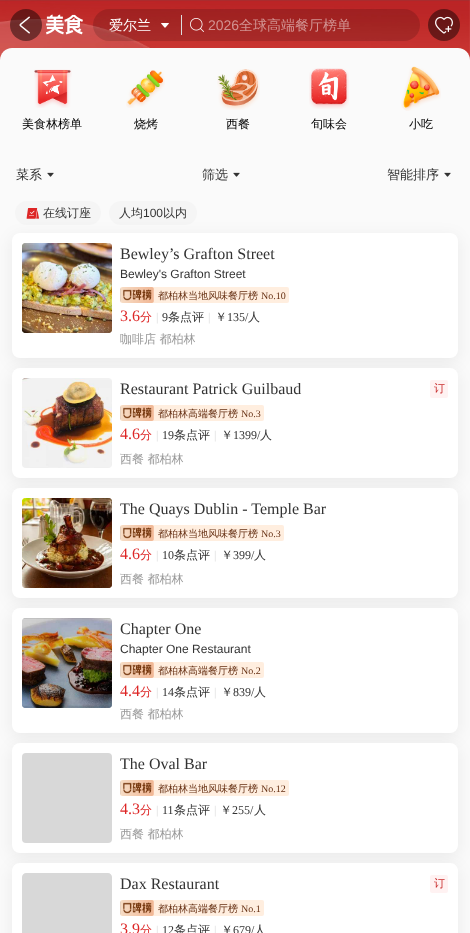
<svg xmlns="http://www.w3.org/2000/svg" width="470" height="933">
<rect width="100%" height="100%" fill="#fff"/>
<image x="0" y="0" width="470" height="60" href="media/1.png"/>
<circle cx="26" cy="25" r="16" fill="#00000073"/>
<image x="19" y="16" width="11" height="18" href="media/2.png"/>
<image x="46" y="14" width="37" height="21" href="media/3.png"/>
<rect x="93" y="9" width="327" height="32" rx="16" fill="#00000026"/>
<text x="109" y="30" style="font-family:WenQuanYi Zen Hei;font-size:14px;font-weight:500;fill:#fff">爱尔兰</text>
<image x="161" y="23" width="8" height="5" href="media/4.png"/>
<rect x="181" y="15" width="1" height="20" fill="#ddd"/>
<image x="190" y="18" width="14" height="14" href="media/5.png"/>
<text x="208" y="30" style="font-family:Liberation Sans;font-size:14px;fill:#d29392">2026</text>
<text x="239" y="30" style="font-family:WenQuanYi Zen Hei;font-size:14px;font-weight:500;fill:#d29392">全球高端餐厅榜单</text>
<circle cx="444" cy="25" r="16" fill="#00000073"/>
<image x="435" y="16" width="18" height="18" href="media/6.png"/>
<path d="M12 48h446c6.5 0 12 5.5 12 12v93h-470v-93c0-6.5 5.5-12 12-12z" fill="#fafafa"/>
<image x="34" y="69" width="38" height="39" href="media/7.png"/>
<text x="22" y="128" style="font-family:WenQuanYi Zen Hei;font-size:12px;font-weight:500;fill:#000">美食林榜单</text>
<image x="126" y="70" width="39" height="38" href="media/8.png"/>
<text x="134" y="128" style="font-family:WenQuanYi Zen Hei;font-size:12px;font-weight:500;fill:#000">烧烤</text>
<image x="217" y="69" width="43" height="41" href="media/9.png"/>
<text x="226" y="128" style="font-family:WenQuanYi Zen Hei;font-size:12px;font-weight:500;fill:#000">西餐</text>
<image x="309" y="68" width="40" height="41" href="media/10.png"/>
<text x="311" y="128" style="font-family:WenQuanYi Zen Hei;font-size:12px;font-weight:500;fill:#000">旬味会</text>
<image x="401" y="66" width="40" height="45" href="media/11.png"/>
<text x="409" y="128" style="font-family:WenQuanYi Zen Hei;font-size:12px;font-weight:500;fill:#000">小吃</text>
<rect y="153" width="470" height="780" fill="#fafafa"/>
<text x="16" y="179" style="font-family:WenQuanYi Zen Hei;font-size:13px;font-weight:500;fill:#333">菜系</text>
<image x="47" y="172" width="7" height="5" href="media/12.png"/>
<text x="202" y="179" style="font-family:WenQuanYi Zen Hei;font-size:13px;font-weight:500;fill:#333">筛选</text>
<image x="233" y="172" width="7" height="5" href="media/12.png"/>
<text x="387" y="179" style="font-family:WenQuanYi Zen Hei;font-size:13px;font-weight:500;fill:#333">智能排序</text>
<image x="444" y="172" width="7" height="5" href="media/12.png"/>
<rect x="15" y="201" width="86" height="24" rx="12" fill="#f5f5f5"/>
<image x="26" y="208" width="13" height="11" href="media/13.png"/>
<text x="43" y="217" style="font-family:WenQuanYi Zen Hei;font-size:12px;font-weight:500;fill:#333">在线订座</text>
<rect x="109" y="201" width="88" height="24" rx="12" fill="#f5f5f5"/>
<text x="119" y="217" style="font-family:WenQuanYi Zen Hei;font-size:12px;font-weight:500;fill:#333">人均</text>
<text x="143" y="217" style="font-family:Liberation Sans;font-size:12px;fill:#333">100</text>
<text x="163" y="217" style="font-family:WenQuanYi Zen Hei;font-size:12px;font-weight:500;fill:#333">以内</text>
<rect x="11" y="236" width="448" height="127" rx="9" fill="#0000000f" filter="blur(8px)"/>
<rect x="12" y="233" width="446" height="125" rx="8" fill="#fff"/>
<image x="22" y="243" width="90" height="90" href="media/14.png"/>
<image x="22" y="243" width="90" height="90" href="media/15.png"/>
<text x="120" y="259" style="font-family:Liberation Serif;font-size:16px;fill:#333">Bewley’s Grafton Street</text>
<text x="120" y="278" style="font-family:Liberation Sans;font-size:12px;fill:#333">Bewley's Grafton Street</text>
<rect x="120" y="287" width="169" height="16" rx="2" fill="#ffeedf"/>
<image x="120" y="287" width="34" height="16" href="media/16.png"/>
<text x="158" y="299" style="font-family:WenQuanYi Zen Hei;font-size:10px;font-weight:500;fill:#673114">都柏林当地风味餐厅榜</text>
<text x="261" y="299" style="font-family:Liberation Serif;font-size:10px;fill:#673114">No.10</text>
<text x="120" y="321" style="font-family:Liberation Serif;font-size:16px;fill:#dd2626">3.6</text>
<text x="140" y="321" style="font-family:WenQuanYi Zen Hei;font-size:12px;font-weight:500;fill:#dd2626">分</text>
<text x="156" y="321" style="font-family:Liberation Serif;font-size:12px;fill:#ddd">|</text>
<text x="162" y="321" style="font-family:Liberation Serif;font-size:12px;fill:#333">9</text>
<text x="168" y="321" style="font-family:WenQuanYi Zen Hei;font-size:12px;font-weight:500;fill:#333">条点评</text>
<text x="208" y="321" style="font-family:Liberation Serif;font-size:12px;fill:#ddd">|</text>
<text x="215" y="321" style="font-family:WenQuanYi Zen Hei;font-size:12px;font-weight:500;fill:#333">￥</text>
<text x="227" y="321" style="font-family:Liberation Serif;font-size:12px;fill:#333">135/</text>
<text x="248" y="321" style="font-family:WenQuanYi Zen Hei;font-size:12px;font-weight:500;fill:#333">人</text>
<text x="120" y="343" style="font-family:WenQuanYi Zen Hei;font-size:12px;font-weight:500;fill:#999">咖啡店 都柏林</text>
<rect x="11" y="371" width="448" height="112" rx="9" fill="#0000000f" filter="blur(8px)"/>
<rect x="12" y="368" width="446" height="110" rx="8" fill="#fff"/>
<image x="22" y="378" width="90" height="90" href="media/17.png"/>
<image x="22" y="378" width="3" height="2" href="media/18.png"/>
<text x="120" y="394" style="font-family:Liberation Serif;font-size:16px;fill:#333">Restaurant Patrick Guilbaud</text>
<rect x="430" y="380" width="18" height="18" rx="2" fill="#fff2f2"/>
<text x="434" y="392" style="font-family:WenQuanYi Zen Hei;font-size:11px;font-weight:500;fill:#c82c2c">订</text>
<rect x="120" y="405" width="144" height="16" rx="2" fill="#ffeedf"/>
<image x="120" y="405" width="34" height="16" href="media/16.png"/>
<text x="158" y="417" style="font-family:WenQuanYi Zen Hei;font-size:10px;font-weight:500;fill:#673114">都柏林高端餐厅榜</text>
<text x="241" y="417" style="font-family:Liberation Serif;font-size:10px;fill:#673114">No.3</text>
<text x="120" y="439" style="font-family:Liberation Serif;font-size:16px;fill:#dd2626">4.6</text>
<text x="140" y="439" style="font-family:WenQuanYi Zen Hei;font-size:12px;font-weight:500;fill:#dd2626">分</text>
<text x="156" y="439" style="font-family:Liberation Serif;font-size:12px;fill:#ddd">|</text>
<text x="162" y="439" style="font-family:Liberation Serif;font-size:12px;fill:#333">19</text>
<text x="174" y="439" style="font-family:WenQuanYi Zen Hei;font-size:12px;font-weight:500;fill:#333">条点评</text>
<text x="214" y="439" style="font-family:Liberation Serif;font-size:12px;fill:#ddd">|</text>
<text x="221" y="439" style="font-family:WenQuanYi Zen Hei;font-size:12px;font-weight:500;fill:#333">￥</text>
<text x="233" y="439" style="font-family:Liberation Serif;font-size:12px;fill:#333">1399/</text>
<text x="260" y="439" style="font-family:WenQuanYi Zen Hei;font-size:12px;font-weight:500;fill:#333">人</text>
<text x="120" y="463" style="font-family:WenQuanYi Zen Hei;font-size:12px;font-weight:500;fill:#999">西餐 都柏林</text>
<rect x="11" y="491" width="448" height="112" rx="9" fill="#0000000f" filter="blur(8px)"/>
<rect x="12" y="488" width="446" height="110" rx="8" fill="#fff"/>
<image x="22" y="498" width="90" height="90" href="media/19.png"/>
<image x="22" y="498" width="90" height="90" href="media/20.png"/>
<text x="120" y="514" style="font-family:Liberation Serif;font-size:16px;fill:#333">The Quays Dublin - Temple Bar</text>
<rect x="120" y="525" width="164" height="16" rx="2" fill="#ffeedf"/>
<image x="120" y="525" width="34" height="16" href="media/16.png"/>
<text x="158" y="537" style="font-family:WenQuanYi Zen Hei;font-size:10px;font-weight:500;fill:#673114">都柏林当地风味餐厅榜</text>
<text x="261" y="537" style="font-family:Liberation Serif;font-size:10px;fill:#673114">No.3</text>
<text x="120" y="559" style="font-family:Liberation Serif;font-size:16px;fill:#dd2626">4.6</text>
<text x="140" y="559" style="font-family:WenQuanYi Zen Hei;font-size:12px;font-weight:500;fill:#dd2626">分</text>
<text x="156" y="559" style="font-family:Liberation Serif;font-size:12px;fill:#ddd">|</text>
<text x="162" y="559" style="font-family:Liberation Serif;font-size:12px;fill:#333">10</text>
<text x="174" y="559" style="font-family:WenQuanYi Zen Hei;font-size:12px;font-weight:500;fill:#333">条点评</text>
<text x="214" y="559" style="font-family:Liberation Serif;font-size:12px;fill:#ddd">|</text>
<text x="221" y="559" style="font-family:WenQuanYi Zen Hei;font-size:12px;font-weight:500;fill:#333">￥</text>
<text x="233" y="559" style="font-family:Liberation Serif;font-size:12px;fill:#333">399/</text>
<text x="254" y="559" style="font-family:WenQuanYi Zen Hei;font-size:12px;font-weight:500;fill:#333">人</text>
<text x="120" y="583" style="font-family:WenQuanYi Zen Hei;font-size:12px;font-weight:500;fill:#999">西餐 都柏林</text>
<rect x="11" y="611" width="448" height="127" rx="9" fill="#0000000f" filter="blur(8px)"/>
<rect x="12" y="608" width="446" height="125" rx="8" fill="#fff"/>
<image x="22" y="618" width="90" height="90" href="media/21.png"/>
<image x="22" y="618" width="90" height="90" href="media/22.png"/>
<text x="120" y="634" style="font-family:Liberation Serif;font-size:16px;fill:#333">Chapter One</text>
<text x="120" y="653" style="font-family:Liberation Sans;font-size:12px;fill:#333">Chapter One Restaurant</text>
<rect x="120" y="662" width="144" height="16" rx="2" fill="#ffeedf"/>
<image x="120" y="662" width="34" height="16" href="media/16.png"/>
<text x="158" y="674" style="font-family:WenQuanYi Zen Hei;font-size:10px;font-weight:500;fill:#673114">都柏林高端餐厅榜</text>
<text x="241" y="674" style="font-family:Liberation Serif;font-size:10px;fill:#673114">No.2</text>
<text x="120" y="696" style="font-family:Liberation Serif;font-size:16px;fill:#dd2626">4.4</text>
<text x="140" y="696" style="font-family:WenQuanYi Zen Hei;font-size:12px;font-weight:500;fill:#dd2626">分</text>
<text x="156" y="696" style="font-family:Liberation Serif;font-size:12px;fill:#ddd">|</text>
<text x="162" y="696" style="font-family:Liberation Serif;font-size:12px;fill:#333">14</text>
<text x="174" y="696" style="font-family:WenQuanYi Zen Hei;font-size:12px;font-weight:500;fill:#333">条点评</text>
<text x="214" y="696" style="font-family:Liberation Serif;font-size:12px;fill:#ddd">|</text>
<text x="221" y="696" style="font-family:WenQuanYi Zen Hei;font-size:12px;font-weight:500;fill:#333">￥</text>
<text x="233" y="696" style="font-family:Liberation Serif;font-size:12px;fill:#333">839/</text>
<text x="254" y="696" style="font-family:WenQuanYi Zen Hei;font-size:12px;font-weight:500;fill:#333">人</text>
<text x="120" y="718" style="font-family:WenQuanYi Zen Hei;font-size:12px;font-weight:500;fill:#999">西餐 都柏林</text>
<rect x="11" y="746" width="448" height="112" rx="9" fill="#0000000f" filter="blur(8px)"/>
<rect x="12" y="743" width="446" height="110" rx="8" fill="#fff"/>
<rect x="22" y="753" width="90" height="90" rx="4" fill="#d8d8d8"/>
<text x="120" y="769" style="font-family:Liberation Serif;font-size:16px;fill:#333">The Oval Bar</text>
<rect x="120" y="780" width="169" height="16" rx="2" fill="#ffeedf"/>
<image x="120" y="780" width="34" height="16" href="media/16.png"/>
<text x="158" y="792" style="font-family:WenQuanYi Zen Hei;font-size:10px;font-weight:500;fill:#673114">都柏林当地风味餐厅榜</text>
<text x="261" y="792" style="font-family:Liberation Serif;font-size:10px;fill:#673114">No.12</text>
<text x="120" y="814" style="font-family:Liberation Serif;font-size:16px;fill:#dd2626">4.3</text>
<text x="140" y="814" style="font-family:WenQuanYi Zen Hei;font-size:12px;font-weight:500;fill:#dd2626">分</text>
<text x="156" y="814" style="font-family:Liberation Serif;font-size:12px;fill:#ddd">|</text>
<text x="162" y="814" style="font-family:Liberation Serif;font-size:12px;fill:#333">11</text>
<text x="174" y="814" style="font-family:WenQuanYi Zen Hei;font-size:12px;font-weight:500;fill:#333">条点评</text>
<text x="214" y="814" style="font-family:Liberation Serif;font-size:12px;fill:#ddd">|</text>
<text x="220" y="814" style="font-family:WenQuanYi Zen Hei;font-size:12px;font-weight:500;fill:#333">￥</text>
<text x="232" y="814" style="font-family:Liberation Serif;font-size:12px;fill:#333">255/</text>
<text x="254" y="814" style="font-family:WenQuanYi Zen Hei;font-size:12px;font-weight:500;fill:#333">人</text>
<text x="120" y="838" style="font-family:WenQuanYi Zen Hei;font-size:12px;font-weight:500;fill:#999">西餐 都柏林</text>
<rect x="11" y="866" width="448" height="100" rx="9" fill="#0000000f" filter="blur(8px)"/>
<path d="M20 863h430c4.5 0 8 3.5 8 8v62h-446v-62c0-4.5 3.5-8 8-8z" fill="#fff"/>
<path d="M26 873h82c2 0 4 2 4 4v56h-90v-56c0-2 2-4 4-4z" fill="#d8d8d8"/>
<text x="120" y="889" style="font-family:Liberation Serif;font-size:16px;fill:#333">Dax Restaurant</text>
<rect x="430" y="875" width="18" height="18" rx="2" fill="#fff2f2"/>
<text x="434" y="887" style="font-family:WenQuanYi Zen Hei;font-size:11px;font-weight:500;fill:#c82c2c">订</text>
<rect x="120" y="900" width="144" height="16" rx="2" fill="#ffeedf"/>
<image x="120" y="900" width="34" height="16" href="media/16.png"/>
<text x="158" y="912" style="font-family:WenQuanYi Zen Hei;font-size:10px;font-weight:500;fill:#673114">都柏林高端餐厅榜</text>
<text x="241" y="912" style="font-family:Liberation Serif;font-size:10px;fill:#673114">No.1</text>
<text x="120" y="934" style="font-family:Liberation Serif;font-size:16px;fill:#dd2626">3.9</text>
<text x="140" y="934" style="font-family:WenQuanYi Zen Hei;font-size:12px;font-weight:500;fill:#dd2626">分</text>
<text x="156" y="934" style="font-family:Liberation Serif;font-size:12px;fill:#ddd">|</text>
<text x="162" y="934" style="font-family:Liberation Serif;font-size:12px;fill:#333">12</text>
<text x="174" y="934" style="font-family:WenQuanYi Zen Hei;font-size:12px;font-weight:500;fill:#333">条点评</text>
<text x="214" y="934" style="font-family:Liberation Serif;font-size:12px;fill:#ddd">|</text>
<text x="221" y="934" style="font-family:WenQuanYi Zen Hei;font-size:12px;font-weight:500;fill:#333">￥</text>
<text x="233" y="934" style="font-family:Liberation Serif;font-size:12px;fill:#333">679/</text>
<text x="254" y="934" style="font-family:WenQuanYi Zen Hei;font-size:12px;font-weight:500;fill:#333">人</text>
</svg>
